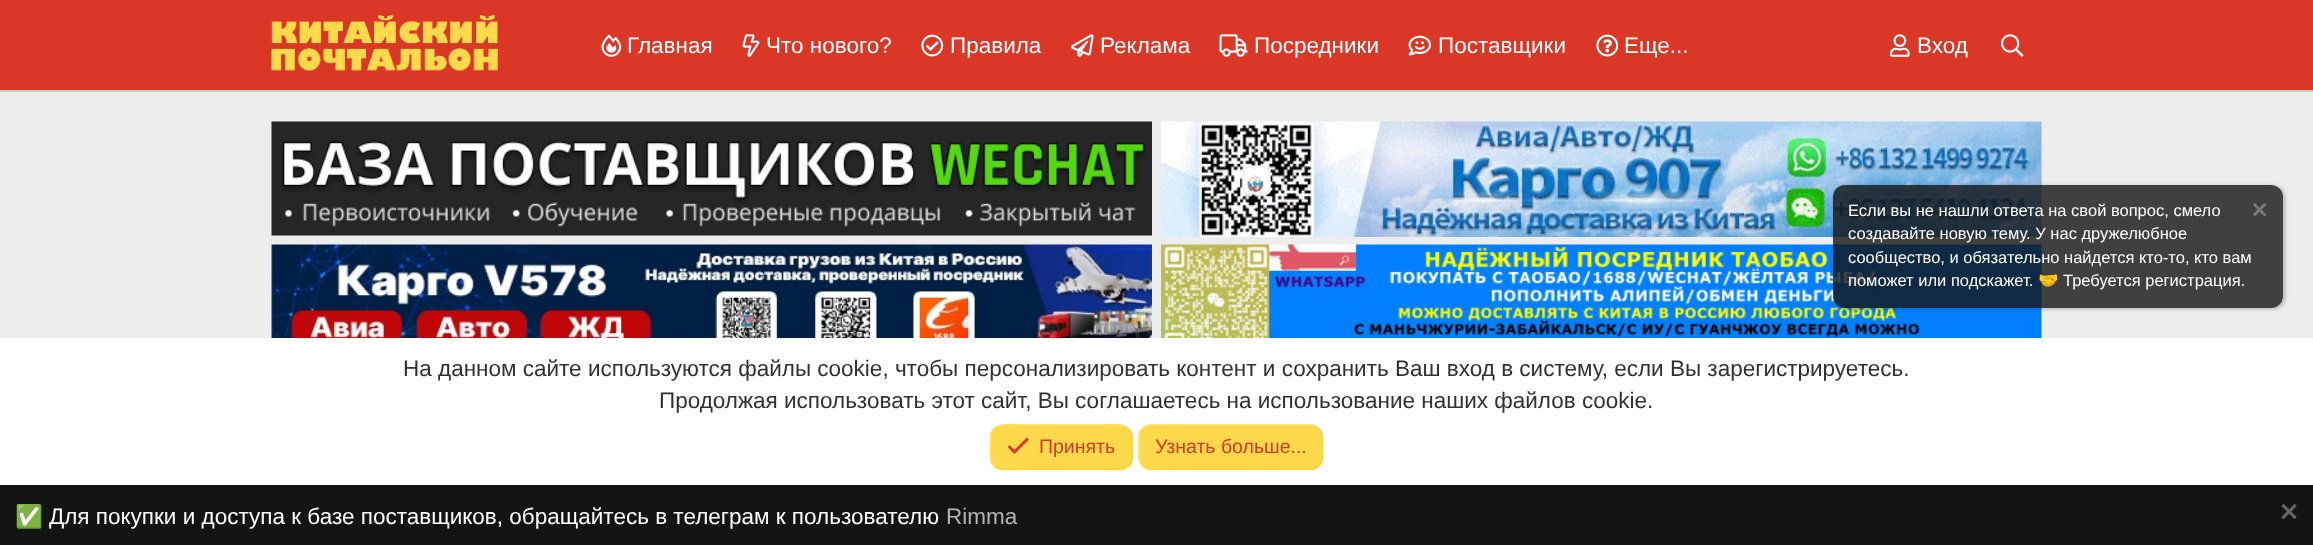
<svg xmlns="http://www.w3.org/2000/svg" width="2313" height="545">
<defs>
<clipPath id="clip1"><path d="M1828 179h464v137h-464zm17 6h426c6.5 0 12 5.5 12 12v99c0 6.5-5.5 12-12 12h-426c-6.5 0-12-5.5-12-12v-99c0-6.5 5.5-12 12-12z" clip-rule="evenodd"/></clipPath>
</defs>
<rect width="100%" height="100%" fill="#ededed"/>
<rect width="2313" height="90" fill="#db3727"/>
<image x="271" y="14" width="227" height="57" href="media/1.png"/>
<image x="601" y="34" width="21" height="23" href="media/2.png"/>
<text x="627" y="53" style="font-family:Liberation Sans;font-size:22.5px;fill:#fff">Главная</text>
<image x="742" y="34" width="18" height="23" href="media/3.png"/>
<text x="766" y="53" style="font-family:Liberation Sans;font-size:22.5px;fill:#fff">Что нового?</text>
<image x="921" y="34" width="23" height="23" href="media/4.png"/>
<text x="950" y="53" style="font-family:Liberation Sans;font-size:22.5px;fill:#fff">Правила</text>
<image x="1071" y="34" width="23" height="23" href="media/5.png"/>
<text x="1100" y="53" style="font-family:Liberation Sans;font-size:22.5px;fill:#fff">Реклама</text>
<image x="1219" y="34" width="29" height="23" href="media/6.png"/>
<text x="1254" y="53" style="font-family:Liberation Sans;font-size:22.5px;fill:#fff">Посредники</text>
<image x="1408" y="35" width="23" height="21" href="media/7.png"/>
<text x="1438" y="53" style="font-family:Liberation Sans;font-size:22.5px;fill:#fff">Поставщики</text>
<image x="1596" y="34" width="23" height="23" href="media/8.png"/>
<text x="1624" y="53" style="font-family:Liberation Sans;font-size:22.5px;fill:#fff">Еще...</text>
<image x="1890" y="34" width="20" height="23" href="media/9.png"/>
<text x="1917" y="53" style="font-family:Liberation Sans;font-size:22.5px;fill:#fff">Вход</text>
<image x="2001" y="34" width="23" height="23" href="media/10.png"/>
<rect y="90" width="2313" height="2" fill="#ccc"/>
<image x="271" y="121" width="881" height="115" href="media/11.png"/>
<image x="1161" y="121" width="881" height="116" href="media/12.png"/>
<image x="271" y="244" width="881" height="94" href="media/13.png"/>
<image x="1161" y="244" width="881" height="94" href="media/14.png"/>
<g clip-path="url(#clip1)">
<rect x="1835" y="186" width="450" height="123" rx="12" fill="#00000040" filter="blur(2px)"/>
</g>
<rect x="1833" y="185" width="450" height="123" rx="12" fill="#141414cc"/>
<text x="1848" y="216" style="font-family:Liberation Sans;font-size:16.5px;fill:#fff">Если вы не нашли ответа на свой вопрос, смело</text>
<image x="2253" y="203" width="14" height="14" href="media/15.png"/>
<text x="1848" y="239" style="font-family:Liberation Sans;font-size:16.5px;fill:#fff">создавайте новую тему. У нас дружелюбное</text>
<text x="1848" y="263" style="font-family:Liberation Sans;font-size:16.5px;fill:#fff">сообщество, и обязательно найдется кто-то, кто вам</text>
<text x="1848" y="286" style="font-family:Liberation Sans;font-size:16.5px;fill:#fff">поможет или подскажет.</text>
<text x="2038" y="286" style="font-family:Noto Color Emoji;font-size:16.5px;fill:#fff">🤝</text>
<text x="2063" y="286" style="font-family:Liberation Sans;font-size:16.5px;fill:#fff">Требуется регистрация.</text>
<rect y="338" width="2313" height="147" fill="#fff"/>
<text x="403" y="376" style="font-family:Liberation Sans;font-size:22.5px;fill:#313131">На данном сайте используются файлы cookie, чтобы персонализировать контент и сохранить Ваш вход в систему, если Вы зарегистрируетесь.</text>
<text x="659" y="408" style="font-family:Liberation Sans;font-size:22.5px;fill:#313131">Продолжая использовать этот сайт, Вы соглашаетесь на использование наших файлов cookie.</text>
<rect x="990" y="425" width="143" height="45" rx="12" fill="#ffd94c"/>
<path d="M1128.5 428.5c4.5 5 3.5 12.5 3.5 18.5l-.5 12.5c-2.5 13.5-22.5 9.5-30.5 9.5h-79c-5.5 0-21.5 3-28-3.5" fill="none" stroke="#ffd432" stroke-width="1.5"/>
<path d="M994 465.5c-4.5-5-3-12.5-3-18.5v-12.5c2.5-13.5 22.5-9.5 31-9.5h79c5 0 21-3 27.5 3.5" fill="none" stroke="#ffde66" stroke-width="1.5"/>
<image x="1007" y="437" width="22" height="17" href="media/16.png"/>
<text x="1039" y="453" style="font-family:Liberation Sans;font-size:19.5px;fill:#db3727">Принять</text>
<rect x="1139" y="425" width="184" height="45" rx="12" fill="#ffd94c"/>
<path d="M1319 428.5c2 2 3 5 3 8v21c0 3-1 6-3 8c-2 2-5 3.5-8 3.5h-160.5c-3 0-6-1.5-8-3.5" fill="none" stroke="#ffd432" stroke-width="1.5"/>
<path d="M1142.5 465.5c-2-2-3.5-5-3.5-8v-21c0-3 1.5-6 3.5-8c2-2 5-3.5 8-3.5h160.5c3 0 6 1.5 8 3.5" fill="none" stroke="#ffde66" stroke-width="1.5"/>
<text x="1155" y="453" style="font-family:Liberation Sans;font-size:19.5px;fill:#db3727">Узнать больше...</text>
<rect y="485" width="2313" height="60" fill="#141414"/>
<text x="15" y="524" style="font-family:Noto Color Emoji;font-size:22.5px;fill:#fff">✅</text>
<text x="49" y="524" style="font-family:Liberation Sans;font-size:22.5px;fill:#fff">Для покупки и доступа к базе поставщиков, обращайтесь в телеграм к пользователю</text>
<text x="946" y="524" style="font-family:Liberation Sans;font-size:22.5px;fill:#b4b4b4">Rimma</text>
<image x="2281" y="504" width="16" height="15" href="media/17.png"/>
</svg>
